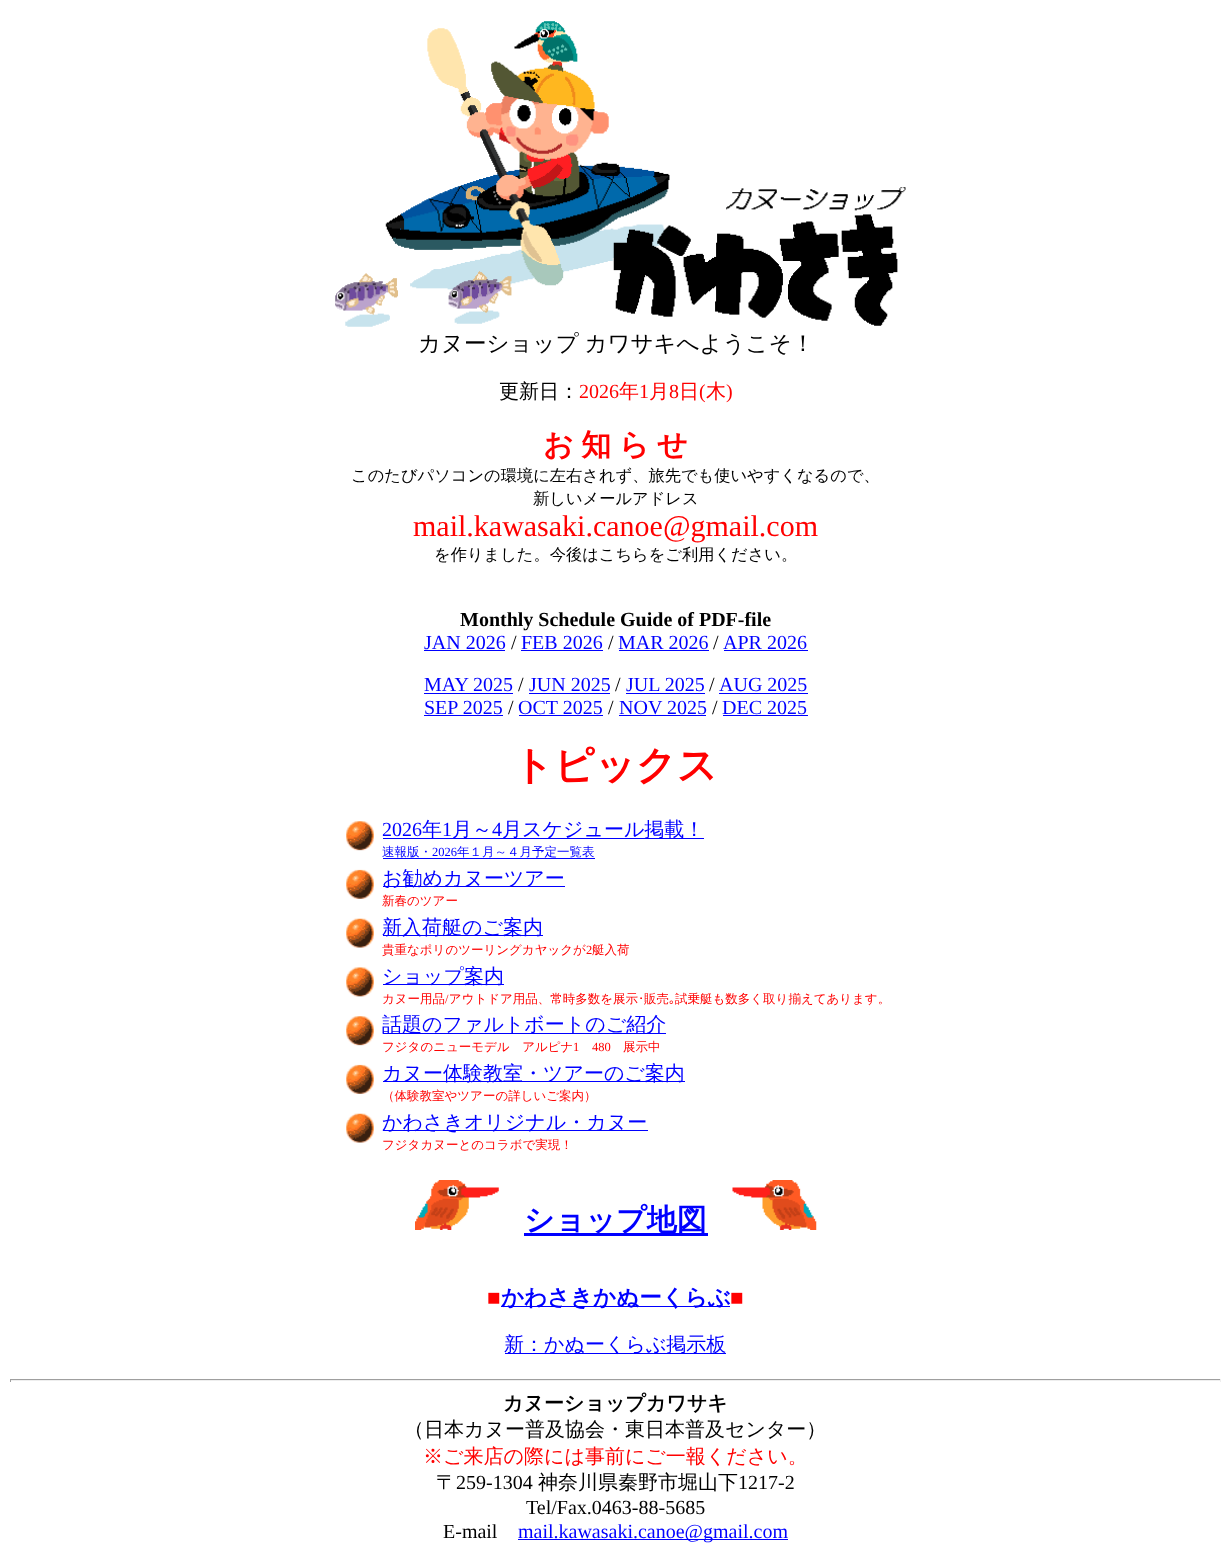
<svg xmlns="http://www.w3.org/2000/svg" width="1231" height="1545">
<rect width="100%" height="100%" fill="#fff"/>
<image x="335" y="21" width="571" height="306" href="media/1.png"/>
<text x="418" y="351" word-spacing="-1" style="font-family:WenQuanYi Zen Hei;font-size:22.5px;font-weight:500;fill:#000">カヌーショップ カワサキへようこそ！</text>
<text x="499" y="398" style="font-family:WenQuanYi Zen Hei;font-size:20px;font-weight:500;fill:#000">更新日：</text>
<text x="579" y="398" style="font-family:Liberation Serif;font-size:20px;fill:#f00">2026</text>
<text x="619" y="398" style="font-family:WenQuanYi Zen Hei;font-size:20px;font-weight:500;fill:#f00">年</text>
<text x="639" y="398" style="font-family:Liberation Serif;font-size:20px;fill:#f00">1</text>
<text x="649" y="398" style="font-family:WenQuanYi Zen Hei;font-size:20px;font-weight:500;fill:#f00">月</text>
<text x="669" y="398" style="font-family:Liberation Serif;font-size:20px;fill:#f00">8</text>
<text x="679" y="398" style="font-family:WenQuanYi Zen Hei;font-size:20px;font-weight:500;fill:#f00">日</text>
<text x="699" y="398" style="font-family:Liberation Serif;font-size:20px;fill:#f00">(</text>
<text x="706" y="398" style="font-family:WenQuanYi Zen Hei;font-size:20px;font-weight:500;fill:#f00">木</text>
<text x="726" y="398" style="font-family:Liberation Serif;font-size:20px;fill:#f00">)</text>
<text x="543" y="455" word-spacing="-1.5" style="font-family:WenQuanYi Zen Hei;font-size:30px;font-weight:bold;fill:#f00">お 知 ら せ</text>
<text x="351" y="481" style="font-family:WenQuanYi Zen Hei;font-size:16.25px;font-weight:500;fill:#000">このたびパソコンの環境に左右されず、旅先でも使いやすくなるので、</text>
<text x="533" y="504" style="font-family:WenQuanYi Zen Hei;font-size:16.25px;font-weight:500;fill:#000">新しいメールアドレス</text>
<text x="413" y="536" style="font-family:Liberation Serif;font-size:30px;fill:#f00">mail.kawasaki.canoe@gmail.com</text>
<text x="434" y="560" style="font-family:WenQuanYi Zen Hei;font-size:16.25px;font-weight:500;fill:#000">を作りました。今後はこちらをご利用ください。</text>
<text x="460" y="626" style="font-family:Liberation Serif;font-size:20px;font-weight:bold;fill:#000">Monthly Schedule Guide of PDF-file</text>
<text x="424" y="649" style="font-family:Liberation Serif;font-size:20px;fill:#00f">JAN 2026</text>
<rect x="424" y="650" width="81" height="1" fill="#00f"/>
<text x="511" y="649" style="font-family:Liberation Serif;font-size:20px;fill:#000">/</text>
<text x="521" y="649" style="font-family:Liberation Serif;font-size:20px;fill:#00f">FEB 2026</text>
<rect x="521" y="650" width="82" height="1" fill="#00f"/>
<text x="608" y="649" style="font-family:Liberation Serif;font-size:20px;fill:#000">/</text>
<text x="618" y="649" style="font-family:Liberation Serif;font-size:20px;fill:#00f">MAR 2026</text>
<rect x="619" y="650" width="90" height="1" fill="#00f"/>
<text x="713" y="649" style="font-family:Liberation Serif;font-size:20px;fill:#000">/</text>
<text x="723" y="649" style="font-family:Liberation Serif;font-size:20px;fill:#00f">APR 2026</text>
<rect x="724" y="650" width="84" height="1" fill="#00f"/>
<text x="424" y="691" style="font-family:Liberation Serif;font-size:20px;fill:#00f">MAY 2025</text>
<rect x="424" y="693" width="89" height="1" fill="#00f"/>
<text x="518" y="691" style="font-family:Liberation Serif;font-size:20px;fill:#000">/</text>
<text x="529" y="691" style="font-family:Liberation Serif;font-size:20px;fill:#00f">JUN 2025</text>
<rect x="529" y="693" width="81" height="1" fill="#00f"/>
<text x="615" y="691" style="font-family:Liberation Serif;font-size:20px;fill:#000">/</text>
<text x="626" y="691" style="font-family:Liberation Serif;font-size:20px;fill:#00f">JUL 2025</text>
<rect x="626" y="693" width="79" height="1" fill="#00f"/>
<text x="709" y="691" style="font-family:Liberation Serif;font-size:20px;fill:#000">/</text>
<text x="719" y="691" style="font-family:Liberation Serif;font-size:20px;fill:#00f">AUG 2025</text>
<rect x="719" y="693" width="89" height="1" fill="#00f"/>
<text x="424" y="714" style="font-family:Liberation Serif;font-size:20px;fill:#00f">SEP 2025</text>
<rect x="424" y="715" width="79" height="1" fill="#00f"/>
<text x="508" y="714" style="font-family:Liberation Serif;font-size:20px;fill:#000">/</text>
<text x="518" y="714" style="font-family:Liberation Serif;font-size:20px;fill:#00f">OCT 2025</text>
<rect x="519" y="715" width="84" height="1" fill="#00f"/>
<text x="608" y="714" style="font-family:Liberation Serif;font-size:20px;fill:#000">/</text>
<text x="619" y="714" style="font-family:Liberation Serif;font-size:20px;fill:#00f">NOV 2025</text>
<rect x="619" y="715" width="87" height="1" fill="#00f"/>
<text x="712" y="714" style="font-family:Liberation Serif;font-size:20px;fill:#000">/</text>
<text x="722" y="714" style="font-family:Liberation Serif;font-size:20px;fill:#00f">DEC 2025</text>
<rect x="723" y="715" width="85" height="1" fill="#00f"/>
<text x="513" y="779" style="font-family:WenQuanYi Zen Hei;font-size:40px;font-weight:bold;fill:#f00">トピックス</text>
<image x="346" y="821" width="28" height="30" href="media/2.png"/>
<text x="382" y="836" style="font-family:Liberation Serif;font-size:20px;fill:#00f">2026</text>
<rect x="383" y="838" width="321" height="1" fill="#00f"/>
<text x="422" y="836" style="font-family:WenQuanYi Zen Hei;font-size:20px;font-weight:500;fill:#00f">年</text>
<text x="442" y="836" style="font-family:Liberation Serif;font-size:20px;fill:#00f">1</text>
<text x="452" y="836" style="font-family:WenQuanYi Zen Hei;font-size:20px;font-weight:500;fill:#00f">月～</text>
<text x="492" y="836" style="font-family:Liberation Serif;font-size:20px;fill:#00f">4</text>
<text x="502" y="836" style="font-family:WenQuanYi Zen Hei;font-size:20px;font-weight:500;fill:#00f">月スケジュール掲載！</text>
<text x="382" y="856" style="font-family:WenQuanYi Zen Hei;font-size:12.5px;font-weight:500;fill:#00f">速報版・</text>
<text x="432" y="856" style="font-family:Liberation Serif;font-size:12.5px;fill:#00f">2026</text>
<rect x="383" y="858" width="212" height="1" fill="#00f"/>
<text x="457" y="856" style="font-family:WenQuanYi Zen Hei;font-size:12.5px;font-weight:500;fill:#00f">年１月～４月予定一覧表</text>
<image x="346" y="869" width="28" height="30" href="media/3.png"/>
<rect x="383" y="886" width="182" height="1" fill="#00f"/>
<text x="382" y="885" style="font-family:WenQuanYi Zen Hei;font-size:20px;font-weight:500;fill:#00f">お勧めカヌーツアー</text>
<text x="382" y="905" style="font-family:WenQuanYi Zen Hei;font-size:12.5px;font-weight:500;fill:#f00">新春のツアー</text>
<image x="346" y="918" width="28" height="30" href="media/4.png"/>
<rect x="383" y="935" width="160" height="1" fill="#00f"/>
<text x="382" y="934" style="font-family:WenQuanYi Zen Hei;font-size:20px;font-weight:500;fill:#00f">新入荷艇のご案内</text>
<text x="382" y="954" style="font-family:WenQuanYi Zen Hei;font-size:12.5px;font-weight:500;fill:#f00">貴重なポリのツーリングカヤックが</text>
<text x="586" y="954" style="font-family:Liberation Serif;font-size:12.5px;fill:#f00">2</text>
<text x="592" y="954" style="font-family:WenQuanYi Zen Hei;font-size:12.5px;font-weight:500;fill:#f00">艇入荷</text>
<image x="346" y="967" width="28" height="30" href="media/5.png"/>
<rect x="383" y="984" width="121" height="1" fill="#00f"/>
<text x="382" y="983" style="font-family:WenQuanYi Zen Hei;font-size:20px;font-weight:500;fill:#00f">ショップ案内</text>
<text x="382" y="1003" style="font-family:WenQuanYi Zen Hei;font-size:12.5px;font-weight:500;fill:#f00">カヌー用品 アウトドア用品、常時多数を展示</text>
<text x="644" y="1003" style="font-family:WenQuanYi Zen Hei;font-size:12.5px;font-weight:500;fill:#f00">販売</text>
<text x="675" y="1003" style="font-family:WenQuanYi Zen Hei;font-size:12.5px;font-weight:500;fill:#f00">試乗艇も数多く取り揃えてあります。</text>
<text x="445" y="1003" style="font-family:Liberation Serif;font-size:12.5px;fill:#f00">/</text>
<text x="638" y="1003" style="font-family:IPAGothic;font-size:12.5px;fill:#f00">･</text>
<text x="669" y="1003" style="font-family:IPAGothic;font-size:12.5px;fill:#f00">｡</text>
<image x="346" y="1016" width="28" height="30" href="media/2.png"/>
<rect x="383" y="1033" width="283" height="1" fill="#00f"/>
<text x="382" y="1031" style="font-family:WenQuanYi Zen Hei;font-size:20px;font-weight:500;fill:#00f">話題のファルトボートのご紹介</text>
<text x="382" y="1051" style="font-family:WenQuanYi Zen Hei;font-size:12.5px;font-weight:500;fill:#f00">フジタのニューモデル　アルピナ</text>
<text x="573" y="1051" style="font-family:Liberation Serif;font-size:12.5px;fill:#f00">1</text>
<text x="592" y="1051" style="font-family:Liberation Serif;font-size:12.5px;fill:#f00">480</text>
<text x="623" y="1051" style="font-family:WenQuanYi Zen Hei;font-size:12.5px;font-weight:500;fill:#f00">展示中</text>
<image x="346" y="1064" width="28" height="30" href="media/3.png"/>
<rect x="383" y="1081" width="302" height="1" fill="#00f"/>
<text x="382" y="1080" style="font-family:WenQuanYi Zen Hei;font-size:20px;font-weight:500;fill:#00f">カヌー体験教室・ツアーのご案内</text>
<text x="382" y="1100" style="font-family:WenQuanYi Zen Hei;font-size:12.5px;font-weight:500;fill:#f00">（体験教室やツアーの詳しいご案内）</text>
<image x="346" y="1113" width="28" height="30" href="media/4.png"/>
<rect x="383" y="1130" width="265" height="1" fill="#00f"/>
<text x="382" y="1129" style="font-family:WenQuanYi Zen Hei;font-size:20px;font-weight:500;fill:#00f">かわさきオリジナル・カヌー</text>
<text x="382" y="1149" style="font-family:WenQuanYi Zen Hei;font-size:12.5px;font-weight:500;fill:#f00">フジタカヌーとのコラボで実現！</text>
<image x="415" y="1180" width="84" height="50" href="media/6.png"/>
<rect x="524" y="1233" width="184" height="3" fill="#00f"/>
<text x="524" y="1230" style="font-family:WenQuanYi Zen Hei;font-size:30px;font-weight:bold;fill:#00f">ショップ地図</text>
<image x="732" y="1180" width="85" height="50" href="media/7.png"/>
<text x="487" y="1305" style="font-family:Liberation Serif;font-size:22.5px;fill:#f00">■</text>
<rect x="501" y="1306" width="229" height="1" fill="#00f"/>
<text x="501" y="1305" style="font-family:WenQuanYi Zen Hei;font-size:22.5px;font-weight:bold;fill:#00f">かわさきかぬーくらぶ</text>
<text x="730" y="1305" style="font-family:Liberation Serif;font-size:22.5px;fill:#f00">■</text>
<rect x="505" y="1353" width="221" height="1" fill="#00f"/>
<text x="504" y="1351" style="font-family:WenQuanYi Zen Hei;font-size:20px;font-weight:500;fill:#00f">新：かぬーくらぶ掲示板</text>
<rect x="10" y="1379" width="1211" height="1" fill="#9f9f9f"/>
<rect x="1220" y="1379" width="1" height="3" fill="#eee"/>
<rect x="10" y="1380" width="1211" height="1" fill="#eee"/>
<rect x="10" y="1379" width="1" height="3" fill="#9f9f9f"/>
<text x="503" y="1410" style="font-family:WenQuanYi Zen Hei;font-size:20px;font-weight:bold;fill:#000">カヌーショップカワサキ</text>
<text x="404" y="1436" style="font-family:WenQuanYi Zen Hei;font-size:20px;font-weight:500;fill:#000">（日本カヌー普及協会・東日本普及センター）</text>
<text x="423" y="1463" style="font-family:WenQuanYi Zen Hei;font-size:20px;font-weight:500;fill:#f00">※ご来店の際には事前にご一報ください。</text>
<text x="436" y="1489" style="font-family:WenQuanYi Zen Hei;font-size:20px;font-weight:500;fill:#000">〒</text>
<text x="456" y="1489" style="font-family:Liberation Serif;font-size:20px;fill:#000">259-1304</text>
<text x="538" y="1489" style="font-family:WenQuanYi Zen Hei;font-size:20px;font-weight:500;fill:#000">神奈川県秦野市堀山下</text>
<text x="738" y="1489" style="font-family:Liberation Serif;font-size:20px;fill:#000">1217-2</text>
<text x="526" y="1514" style="font-family:Liberation Serif;font-size:20px;fill:#000">Tel/Fax.0463-88-5685</text>
<text x="443" y="1538" style="font-family:Liberation Serif;font-size:20px;fill:#000">E-mail</text>
<rect x="518" y="1539" width="270" height="1" fill="#00f"/>
<text x="518" y="1538" style="font-family:Liberation Serif;font-size:20px;fill:#00f">mail.kawasaki.canoe@gmail.com</text>
</svg>
